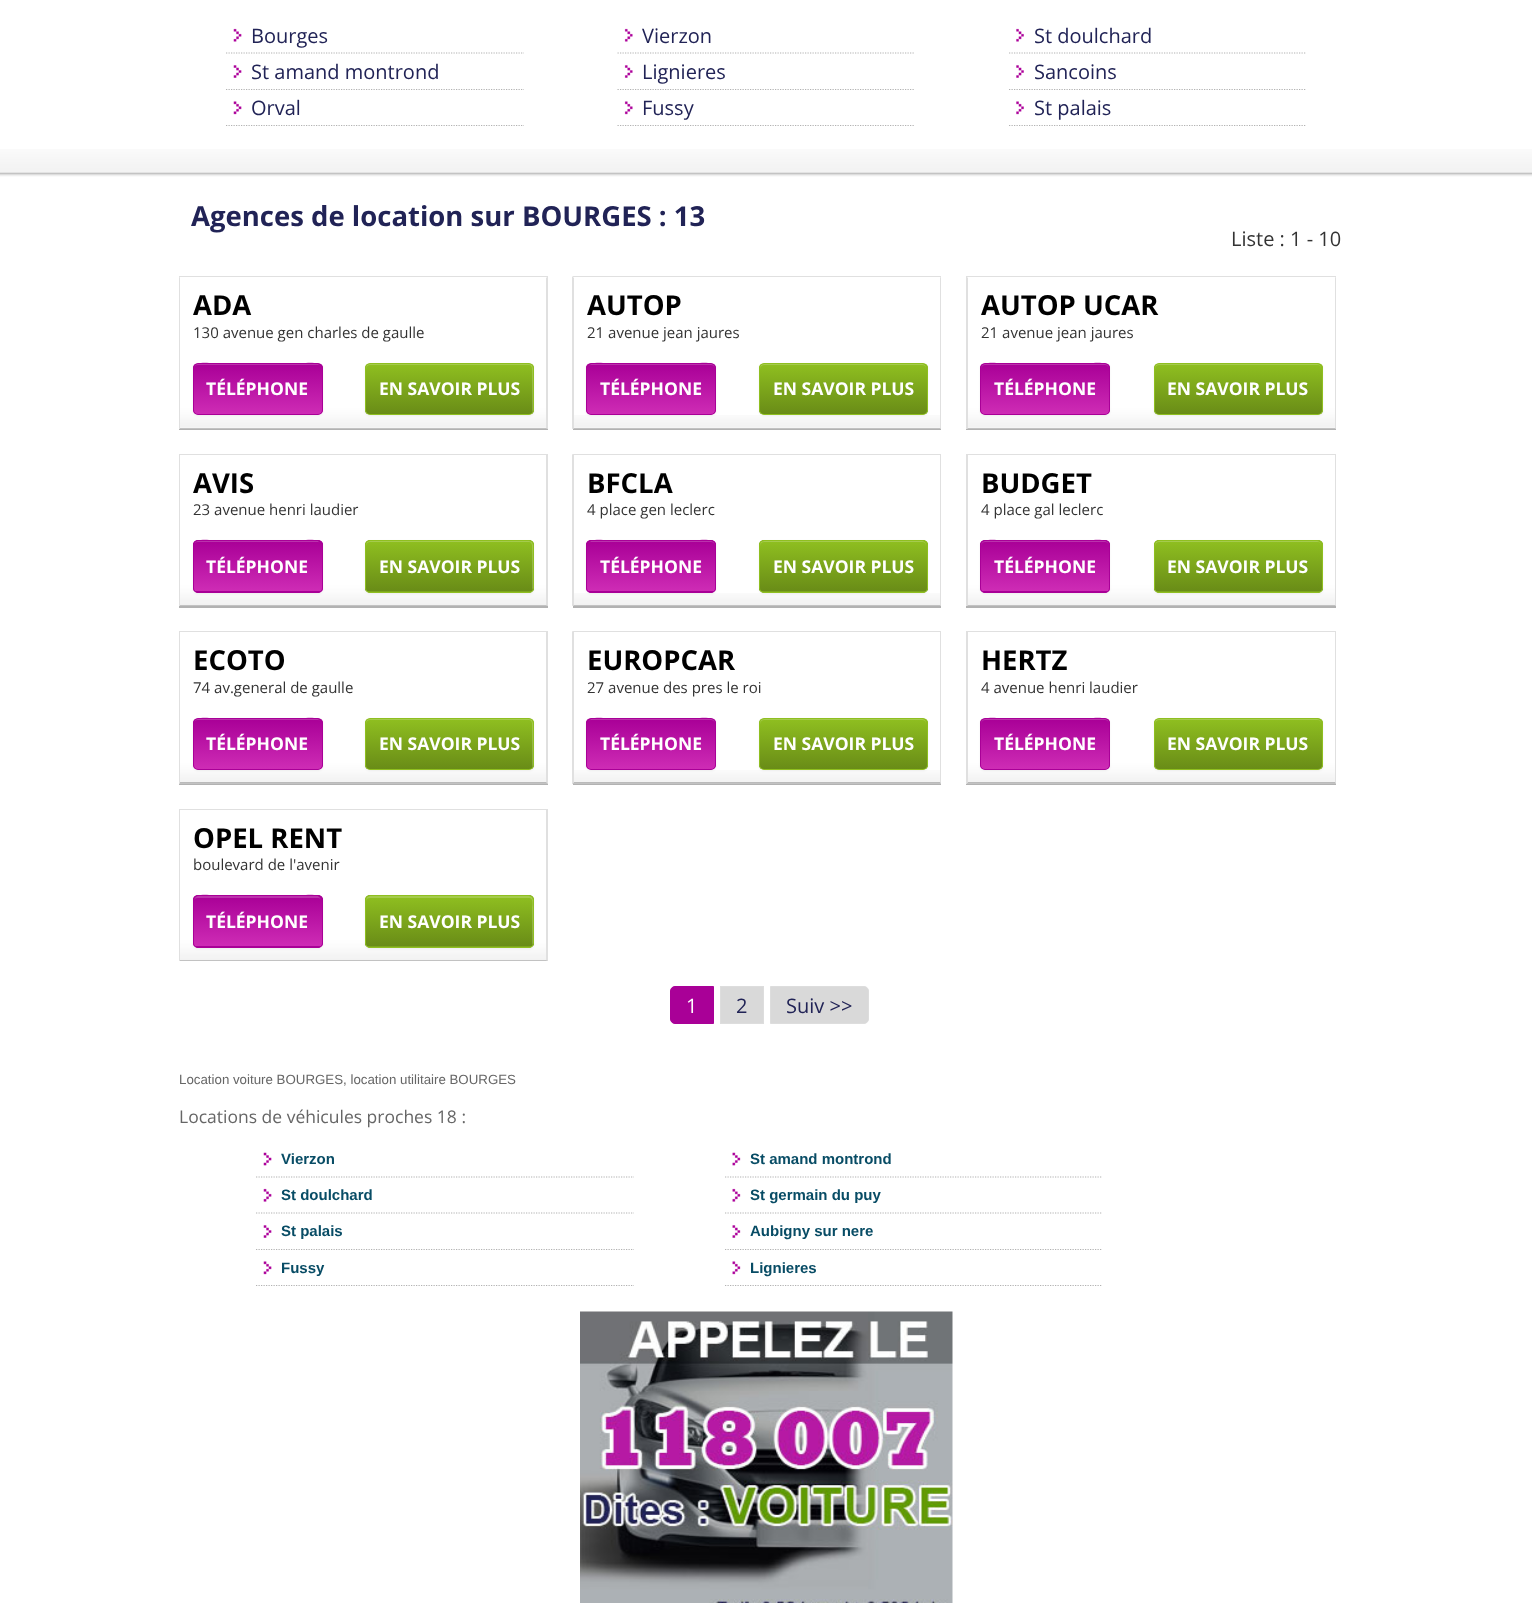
<svg xmlns="http://www.w3.org/2000/svg" width="1532" height="1603">
<defs>
<clipPath id="clip1"><rect x="179" y="5" width="1175" height="121"/></clipPath>
<clipPath id="clip2"><path d="M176 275h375v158h-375zm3 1h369v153h-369z" clip-rule="evenodd"/></clipPath>
<clipPath id="clip3"><rect x="193" y="363" width="130" height="52" rx="5"/></clipPath>
<linearGradient id="g1" gradientUnits="userSpaceOnUse" x1="258" y1="364" x2="258" y2="414"><stop offset="0" stop-color="#a90097"/><stop offset="1" stop-color="#ce2cb5"/></linearGradient>
<clipPath id="clip4"><rect x="365" y="363" width="169" height="52" rx="5"/></clipPath>
<linearGradient id="g2" gradientUnits="userSpaceOnUse" x1="449" y1="364" x2="449" y2="414"><stop offset="0" stop-color="#8fbf20"/><stop offset="1" stop-color="#698c17"/></linearGradient>
<clipPath id="clip5"><path d="M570 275h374v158h-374zm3 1h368v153h-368z" clip-rule="evenodd"/></clipPath>
<clipPath id="clip6"><rect x="586" y="363" width="130" height="52" rx="5"/></clipPath>
<linearGradient id="g3" gradientUnits="userSpaceOnUse" x1="651" y1="364" x2="651" y2="414"><stop offset="0" stop-color="#a90097"/><stop offset="1" stop-color="#ce2cb5"/></linearGradient>
<clipPath id="clip7"><rect x="759" y="363" width="169" height="52" rx="5"/></clipPath>
<linearGradient id="g4" gradientUnits="userSpaceOnUse" x1="843" y1="364" x2="843" y2="414"><stop offset="0" stop-color="#8fbf20"/><stop offset="1" stop-color="#698c17"/></linearGradient>
<clipPath id="clip8"><path d="M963 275h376v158h-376zm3 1h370v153h-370z" clip-rule="evenodd"/></clipPath>
<clipPath id="clip9"><rect x="980" y="363" width="130" height="52" rx="5"/></clipPath>
<linearGradient id="g5" gradientUnits="userSpaceOnUse" x1="1045" y1="364" x2="1045" y2="414"><stop offset="0" stop-color="#a90097"/><stop offset="1" stop-color="#ce2cb5"/></linearGradient>
<clipPath id="clip10"><rect x="1154" y="363" width="169" height="52" rx="5"/></clipPath>
<linearGradient id="g6" gradientUnits="userSpaceOnUse" x1="1238" y1="364" x2="1238" y2="414"><stop offset="0" stop-color="#8fbf20"/><stop offset="1" stop-color="#698c17"/></linearGradient>
<clipPath id="clip11"><path d="M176 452h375v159h-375zm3 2h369v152h-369z" clip-rule="evenodd"/></clipPath>
<clipPath id="clip12"><rect x="193" y="540" width="130" height="53" rx="5"/></clipPath>
<linearGradient id="g7" gradientUnits="userSpaceOnUse" x1="258" y1="541" x2="258" y2="591"><stop offset="0" stop-color="#a90097"/><stop offset="1" stop-color="#ce2cb5"/></linearGradient>
<clipPath id="clip13"><rect x="365" y="540" width="169" height="53" rx="5"/></clipPath>
<linearGradient id="g8" gradientUnits="userSpaceOnUse" x1="449" y1="541" x2="449" y2="591"><stop offset="0" stop-color="#8fbf20"/><stop offset="1" stop-color="#698c17"/></linearGradient>
<clipPath id="clip14"><path d="M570 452h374v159h-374zm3 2h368v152h-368z" clip-rule="evenodd"/></clipPath>
<clipPath id="clip15"><rect x="586" y="540" width="130" height="53" rx="5"/></clipPath>
<linearGradient id="g9" gradientUnits="userSpaceOnUse" x1="651" y1="541" x2="651" y2="591"><stop offset="0" stop-color="#a90097"/><stop offset="1" stop-color="#ce2cb5"/></linearGradient>
<clipPath id="clip16"><rect x="759" y="540" width="169" height="53" rx="5"/></clipPath>
<linearGradient id="g10" gradientUnits="userSpaceOnUse" x1="843" y1="541" x2="843" y2="591"><stop offset="0" stop-color="#8fbf20"/><stop offset="1" stop-color="#698c17"/></linearGradient>
<clipPath id="clip17"><path d="M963 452h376v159h-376zm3 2h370v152h-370z" clip-rule="evenodd"/></clipPath>
<clipPath id="clip18"><rect x="980" y="540" width="130" height="53" rx="5"/></clipPath>
<linearGradient id="g11" gradientUnits="userSpaceOnUse" x1="1045" y1="541" x2="1045" y2="591"><stop offset="0" stop-color="#a90097"/><stop offset="1" stop-color="#ce2cb5"/></linearGradient>
<clipPath id="clip19"><rect x="1154" y="540" width="169" height="53" rx="5"/></clipPath>
<linearGradient id="g12" gradientUnits="userSpaceOnUse" x1="1238" y1="541" x2="1238" y2="591"><stop offset="0" stop-color="#8fbf20"/><stop offset="1" stop-color="#698c17"/></linearGradient>
<clipPath id="clip20"><path d="M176 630h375v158h-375zm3 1h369v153h-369z" clip-rule="evenodd"/></clipPath>
<clipPath id="clip21"><rect x="193" y="718" width="130" height="52" rx="5"/></clipPath>
<linearGradient id="g13" gradientUnits="userSpaceOnUse" x1="258" y1="719" x2="258" y2="769"><stop offset="0" stop-color="#a90097"/><stop offset="1" stop-color="#ce2cb5"/></linearGradient>
<clipPath id="clip22"><rect x="365" y="718" width="169" height="52" rx="5"/></clipPath>
<linearGradient id="g14" gradientUnits="userSpaceOnUse" x1="449" y1="719" x2="449" y2="769"><stop offset="0" stop-color="#8fbf20"/><stop offset="1" stop-color="#698c17"/></linearGradient>
<clipPath id="clip23"><path d="M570 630h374v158h-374zm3 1h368v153h-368z" clip-rule="evenodd"/></clipPath>
<clipPath id="clip24"><rect x="586" y="718" width="130" height="52" rx="5"/></clipPath>
<linearGradient id="g15" gradientUnits="userSpaceOnUse" x1="651" y1="719" x2="651" y2="769"><stop offset="0" stop-color="#a90097"/><stop offset="1" stop-color="#ce2cb5"/></linearGradient>
<clipPath id="clip25"><rect x="759" y="718" width="169" height="52" rx="5"/></clipPath>
<linearGradient id="g16" gradientUnits="userSpaceOnUse" x1="843" y1="719" x2="843" y2="769"><stop offset="0" stop-color="#8fbf20"/><stop offset="1" stop-color="#698c17"/></linearGradient>
<clipPath id="clip26"><path d="M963 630h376v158h-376zm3 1h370v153h-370z" clip-rule="evenodd"/></clipPath>
<clipPath id="clip27"><rect x="980" y="718" width="130" height="52" rx="5"/></clipPath>
<linearGradient id="g17" gradientUnits="userSpaceOnUse" x1="1045" y1="719" x2="1045" y2="769"><stop offset="0" stop-color="#a90097"/><stop offset="1" stop-color="#ce2cb5"/></linearGradient>
<clipPath id="clip28"><rect x="1154" y="718" width="169" height="52" rx="5"/></clipPath>
<linearGradient id="g18" gradientUnits="userSpaceOnUse" x1="1238" y1="719" x2="1238" y2="769"><stop offset="0" stop-color="#8fbf20"/><stop offset="1" stop-color="#698c17"/></linearGradient>
<clipPath id="clip29"><rect x="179" y="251" width="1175" height="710"/></clipPath>
<clipPath id="clip30"><path d="M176 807h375v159h-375zm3 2h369v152h-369z" clip-rule="evenodd"/></clipPath>
<clipPath id="clip31"><rect x="193" y="895" width="130" height="53" rx="5"/></clipPath>
<linearGradient id="g19" gradientUnits="userSpaceOnUse" x1="258" y1="896" x2="258" y2="946"><stop offset="0" stop-color="#a90097"/><stop offset="1" stop-color="#ce2cb5"/></linearGradient>
<clipPath id="clip32"><rect x="365" y="895" width="169" height="53" rx="5"/></clipPath>
<linearGradient id="g20" gradientUnits="userSpaceOnUse" x1="449" y1="896" x2="449" y2="946"><stop offset="0" stop-color="#8fbf20"/><stop offset="1" stop-color="#698c17"/></linearGradient>
</defs>
<rect width="100%" height="100%" fill="#fff"/>
<image x="0" y="149" width="1532" height="28" href="media/1.png"/>
<path d="M226 53h298" fill="none" stroke="#b2b2b2" stroke-width="1.2" stroke-dasharray="1.25 1.25"/>
<image x="233" y="28" width="9" height="14" href="media/2.png"/>
<text x="251" y="43" style="font-family:Open Sans;font-size:20px;fill:#212356">Bourges</text>
<path d="M617.5 53h297.5" fill="none" stroke="#b2b2b2" stroke-width="1.2" stroke-dasharray="1.25 1.25"/>
<image x="624" y="28" width="9" height="14" href="media/3.png"/>
<text x="642" y="43" style="font-family:Open Sans;font-size:20px;fill:#212356">Vierzon</text>
<path d="M1009 53h297" fill="none" stroke="#b2b2b2" stroke-width="1.2" stroke-dasharray="1.25 1.25"/>
<image x="1016" y="28" width="8" height="14" href="media/4.png"/>
<text x="1034" y="43" style="font-family:Open Sans;font-size:20px;fill:#212356">St doulchard</text>
<path d="M226 89.5h298" fill="none" stroke="#b2b2b2" stroke-width="1.2" stroke-dasharray="1.25 1.25"/>
<image x="233" y="65" width="9" height="13" href="media/5.png"/>
<text x="251" y="79" style="font-family:Open Sans;font-size:20px;fill:#212356">St amand montrond</text>
<path d="M617.5 89.5h297.5" fill="none" stroke="#b2b2b2" stroke-width="1.2" stroke-dasharray="1.25 1.25"/>
<image x="624" y="65" width="9" height="13" href="media/6.png"/>
<text x="642" y="79" style="font-family:Open Sans;font-size:20px;fill:#212356">Lignieres</text>
<path d="M1009 89.5h297" fill="none" stroke="#b2b2b2" stroke-width="1.2" stroke-dasharray="1.25 1.25"/>
<image x="1016" y="65" width="8" height="13" href="media/7.png"/>
<text x="1034" y="79" style="font-family:Open Sans;font-size:20px;fill:#212356">Sancoins</text>
<g clip-path="url(#clip1)">
<path d="M226 125.5h298" fill="none" stroke="#b2b2b2" stroke-width="1.2" stroke-dasharray="1.25 1.25"/>
</g>
<image x="233" y="101" width="9" height="14" href="media/8.png"/>
<text x="251" y="115" style="font-family:Open Sans;font-size:20px;fill:#212356">Orval</text>
<g clip-path="url(#clip1)">
<path d="M617.5 125.5h297.5" fill="none" stroke="#b2b2b2" stroke-width="1.2" stroke-dasharray="1.25 1.25"/>
</g>
<image x="624" y="101" width="9" height="14" href="media/9.png"/>
<text x="642" y="115" style="font-family:Open Sans;font-size:20px;fill:#212356">Fussy</text>
<g clip-path="url(#clip1)">
<path d="M1009 125.5h297" fill="none" stroke="#b2b2b2" stroke-width="1.2" stroke-dasharray="1.25 1.25"/>
</g>
<image x="1016" y="101" width="8" height="14" href="media/10.png"/>
<text x="1034" y="115" style="font-family:Open Sans;font-size:20px;fill:#212356">St palais</text>
<text x="191" y="226" style="font-family:Open Sans;font-size:27.5px;font-weight:bold;fill:#212356">Agences de location sur BOURGES : 13</text>
<text x="1231" y="246" style="font-family:Open Sans;font-size:20px;fill:#333">Liste : 1 - 10</text>
<g clip-path="url(#clip2)">
<rect x="179" y="278" width="369" height="152" fill="#0000004d" filter="blur(0.5px)"/>
</g>
<image x="180" y="390" width="366" height="38" href="media/11.png"/>
<rect x="179" y="276" width="369" height="1" fill="#e0e0e0"/>
<path d="M548 276v153l-2-1v-150z" fill="#e0e0e0"/>
<path d="M548 429h-369l1-1h366z" fill="#0000003d"/>
<path d="M179 429v-153l1 2v150z" fill="#e0e0e0"/>
<text x="193" y="315" style="font-family:Open Sans;font-size:27.5px;font-weight:bold;fill:#000">ADA</text>
<text x="193" y="338" style="font-family:Open Sans;font-size:15px;fill:#333">130 avenue gen charles de gaulle</text>
<rect x="193" y="364" width="130" height="52" rx="5" fill="#0000000d" filter="blur(1px)"/>
<g clip-path="url(#clip3)">
<rect x="193" y="364" width="130" height="50" fill="url(#g1)"/>
</g>
<path d="M198 365h120c2 0 3 2 3 4c0-10-21-5-24-5h-79c-3 0-24-5-24 5c0-2 1-4 4-4z" fill="#ba33ac"/>
<rect x="193.5" y="363.5" width="129" height="51" rx="4.5" fill="none" stroke="#a90097"/>
<text x="206" y="395" style="font-family:Open Sans;font-size:17.5px;font-weight:bold;fill:#fff">TÉLÉPHONE</text>
<rect x="365" y="364" width="169" height="52" rx="5" fill="#0000000d" filter="blur(1px)"/>
<g clip-path="url(#clip4)">
<rect x="365" y="364" width="169" height="50" fill="url(#g2)"/>
</g>
<path d="M370 365h159c2 0 3 2 3 4v44c0-1 1-2 1-3v-42c0-2-2-4-4-4h-159c-2 0-4 2-4 4v1c0-2 2-4 4-4z" fill="#ffffff33"/>
<rect x="365.5" y="363.5" width="168" height="51" rx="4.5" fill="none" stroke="#8fbf20"/>
<text x="379" y="395" style="font-family:Open Sans;font-size:17.5px;font-weight:bold;fill:#fff">EN SAVOIR PLUS</text>
<g clip-path="url(#clip5)">
<rect x="573" y="278" width="368" height="152" fill="#0000004d" filter="blur(0.5px)"/>
</g>
<image x="574" y="415" width="366" height="13" href="media/12.png"/>
<rect x="573" y="276" width="368" height="1" fill="#e0e0e0"/>
<path d="M941 276v153l-1-1v-150z" fill="#e0e0e0"/>
<path d="M941 429h-369l2-1h366z" fill="#0000003d"/>
<path d="M572 429v-153l2 2v150z" fill="#e0e0e0"/>
<text x="587" y="315" style="font-family:Open Sans;font-size:27.5px;font-weight:bold;fill:#000">AUTOP</text>
<text x="587" y="338" style="font-family:Open Sans;font-size:15px;fill:#333">21 avenue jean jaures</text>
<rect x="586" y="364" width="130" height="52" rx="5" fill="#0000000d" filter="blur(1px)"/>
<g clip-path="url(#clip6)">
<rect x="586" y="364" width="130" height="50" fill="url(#g3)"/>
</g>
<path d="M591 365h120c2 0 4 2 4 4c0-10-21-5-24-5h-79c-3 0-24-5-24 5c0-2 1-4 3-4z" fill="#ba33ac"/>
<rect x="586.5" y="363.5" width="129" height="51" rx="4.5" fill="none" stroke="#a90097"/>
<text x="600" y="395" style="font-family:Open Sans;font-size:17.5px;font-weight:bold;fill:#fff">TÉLÉPHONE</text>
<rect x="759" y="364" width="169" height="52" rx="5" fill="#0000000d" filter="blur(1px)"/>
<g clip-path="url(#clip7)">
<rect x="759" y="364" width="169" height="50" fill="url(#g4)"/>
</g>
<path d="M764 365h158c3 0 4 2 4 4v-1c0-2-2-4-4-4h-158c-2 0-4 2-4 4v1c0-2 2-4 4-4z" fill="#a5cb4d"/>
<rect x="759.5" y="363.5" width="168" height="51" rx="4.5" fill="none" stroke="#8fbf20"/>
<text x="773" y="395" style="font-family:Open Sans;font-size:17.5px;font-weight:bold;fill:#fff">EN SAVOIR PLUS</text>
<g clip-path="url(#clip8)">
<rect x="966" y="278" width="370" height="152" fill="#0000004d" filter="blur(0.5px)"/>
</g>
<image x="968" y="390" width="367" height="38" href="media/13.png"/>
<rect x="966" y="276" width="370" height="1" fill="#e0e0e0"/>
<path d="M1336 276v153l-1-1v-150z" fill="#e0e0e0"/>
<path d="M1336 429h-370l2-1h367z" fill="#0000003d"/>
<path d="M966 429v-153l2 2v150z" fill="#e0e0e0"/>
<text x="981" y="315" style="font-family:Open Sans;font-size:27.5px;font-weight:bold;fill:#000">AUTOP UCAR</text>
<text x="981" y="338" style="font-family:Open Sans;font-size:15px;fill:#333">21 avenue jean jaures</text>
<rect x="980" y="364" width="130" height="52" rx="5" fill="#0000000d" filter="blur(1px)"/>
<g clip-path="url(#clip9)">
<rect x="980" y="364" width="130" height="50" fill="url(#g5)"/>
</g>
<path d="M985 365h120c2 0 4 2 4 4c0-10-22-5-24-5h-80c-2 0-24-5-24 5c0-2 2-4 4-4z" fill="#ba33ac"/>
<rect x="980.5" y="363.5" width="129" height="51" rx="4.5" fill="none" stroke="#a90097"/>
<text x="994" y="395" style="font-family:Open Sans;font-size:17.5px;font-weight:bold;fill:#fff">TÉLÉPHONE</text>
<rect x="1154" y="364" width="169" height="52" rx="5" fill="#0000000d" filter="blur(1px)"/>
<g clip-path="url(#clip10)">
<rect x="1154" y="364" width="169" height="50" fill="url(#g6)"/>
</g>
<path d="M1159 365h159c2 0 3 2 3 4v-1c0-2-2-4-4-4h-158c-2 0-4 2-4 4v1c0-2 2-4 4-4z" fill="#a5cb4d"/>
<rect x="1154.5" y="363.5" width="168" height="51" rx="4.5" fill="none" stroke="#8fbf20"/>
<text x="1167" y="395" style="font-family:Open Sans;font-size:17.5px;font-weight:bold;fill:#fff">EN SAVOIR PLUS</text>
<g clip-path="url(#clip11)">
<rect x="179" y="455" width="369" height="153" fill="#0000004d" filter="blur(0.5px)"/>
</g>
<image x="180" y="567" width="366" height="38" href="media/14.png"/>
<rect x="179" y="454" width="369" height="1" fill="#e0e0e0"/>
<path d="M548 454v152l-2-1v-150z" fill="#e0e0e0"/>
<path d="M548 606h-369l1-1h366z" fill="#0000003d"/>
<path d="M179 606v-152l1 1v150z" fill="#e0e0e0"/>
<text x="193" y="493" style="font-family:Open Sans;font-size:27.5px;font-weight:bold;fill:#000">AVIS</text>
<text x="193" y="515" style="font-family:Open Sans;font-size:15px;fill:#333">23 avenue henri laudier</text>
<rect x="193" y="541" width="130" height="53" rx="5" fill="#0000000d" filter="blur(1px)"/>
<rect x="193" y="540" width="130" height="53" rx="5" fill="#a90097"/>
<g clip-path="url(#clip12)">
<rect x="193" y="541" width="130" height="50" fill="url(#g7)"/>
</g>
<path d="M198 542h120c2 0 3 2 3 4c0-10-21-5-24-5h-79c-3 0-24-5-24 5c0-2 1-4 4-4z" fill="#ba33ac"/>
<rect x="193.5" y="540.5" width="129" height="52" rx="4.5" fill="none" stroke="#a90097"/>
<text x="206" y="573" style="font-family:Open Sans;font-size:17.5px;font-weight:bold;fill:#fff">TÉLÉPHONE</text>
<rect x="365" y="541" width="169" height="53" rx="5" fill="#0000000d" filter="blur(1px)"/>
<rect x="365" y="540" width="169" height="53" rx="5" fill="#7ca61c"/>
<g clip-path="url(#clip13)">
<rect x="365" y="541" width="169" height="50" fill="url(#g8)"/>
</g>
<path d="M370 542h159c2 0 3 2 3 4v44c1-1 1-2 1-3v-42c0-2-2-4-4-4h-159c-2 0-4 2-4 4v1c0-2 2-4 4-4z" fill="#ffffff33"/>
<rect x="365.5" y="540.5" width="168" height="52" rx="4.5" fill="none" stroke="#8fbf20"/>
<text x="379" y="573" style="font-family:Open Sans;font-size:17.5px;font-weight:bold;fill:#fff">EN SAVOIR PLUS</text>
<g clip-path="url(#clip14)">
<rect x="573" y="455" width="368" height="153" fill="#0000004d" filter="blur(0.5px)"/>
</g>
<image x="574" y="593" width="366" height="12" href="media/15.png"/>
<rect x="573" y="454" width="368" height="1" fill="#e0e0e0"/>
<path d="M941 454v152l-1-1v-150z" fill="#e0e0e0"/>
<path d="M941 606h-369l2-1h366z" fill="#0000003d"/>
<path d="M572 606v-152l2 1v150z" fill="#e0e0e0"/>
<text x="587" y="493" style="font-family:Open Sans;font-size:27.5px;font-weight:bold;fill:#000">BFCLA</text>
<text x="587" y="515" style="font-family:Open Sans;font-size:15px;fill:#333">4 place gen leclerc</text>
<rect x="586" y="541" width="130" height="53" rx="5" fill="#0000000d" filter="blur(1px)"/>
<rect x="586" y="540" width="130" height="53" rx="5" fill="#a90097"/>
<g clip-path="url(#clip15)">
<rect x="586" y="541" width="130" height="50" fill="url(#g9)"/>
</g>
<path d="M591 542h120c2 0 4 2 4 4c0-10-21-5-24-5h-79c-3 0-24-5-24 5c0-2 1-4 3-4z" fill="#ba33ac"/>
<rect x="586.5" y="540.5" width="129" height="52" rx="4.5" fill="none" stroke="#a90097"/>
<text x="600" y="573" style="font-family:Open Sans;font-size:17.5px;font-weight:bold;fill:#fff">TÉLÉPHONE</text>
<rect x="759" y="541" width="169" height="53" rx="5" fill="#0000000d" filter="blur(1px)"/>
<rect x="759" y="540" width="169" height="53" rx="5" fill="#7ca61c"/>
<g clip-path="url(#clip16)">
<rect x="759" y="541" width="169" height="50" fill="url(#g10)"/>
</g>
<path d="M764 542h158c3 0 4 2 4 4v-1c0-2-2-4-4-4h-158c-2 0-4 2-4 4v1c0-2 2-4 4-4z" fill="#a5cb4d"/>
<rect x="759.5" y="540.5" width="168" height="52" rx="4.5" fill="none" stroke="#8fbf20"/>
<text x="773" y="573" style="font-family:Open Sans;font-size:17.5px;font-weight:bold;fill:#fff">EN SAVOIR PLUS</text>
<g clip-path="url(#clip17)">
<rect x="966" y="455" width="370" height="153" fill="#0000004d" filter="blur(0.5px)"/>
</g>
<image x="968" y="568" width="367" height="37" href="media/16.png"/>
<rect x="966" y="454" width="370" height="1" fill="#e0e0e0"/>
<path d="M1336 454v152l-1-1v-150z" fill="#e0e0e0"/>
<path d="M1336 606h-370l2-1h367z" fill="#0000003d"/>
<path d="M966 606v-152l2 1v150z" fill="#e0e0e0"/>
<text x="981" y="493" style="font-family:Open Sans;font-size:27.5px;font-weight:bold;fill:#000">BUDGET</text>
<text x="981" y="515" style="font-family:Open Sans;font-size:15px;fill:#333">4 place gal leclerc</text>
<rect x="980" y="541" width="130" height="53" rx="5" fill="#0000000d" filter="blur(1px)"/>
<rect x="980" y="540" width="130" height="53" rx="5" fill="#a90097"/>
<g clip-path="url(#clip18)">
<rect x="980" y="541" width="130" height="50" fill="url(#g11)"/>
</g>
<path d="M985 542h120c2 0 4 2 4 4c0-10-22-5-24-5h-80c-2 0-24-5-24 5c0-2 2-4 4-4z" fill="#ba33ac"/>
<rect x="980.5" y="540.5" width="129" height="52" rx="4.5" fill="none" stroke="#a90097"/>
<text x="994" y="573" style="font-family:Open Sans;font-size:17.5px;font-weight:bold;fill:#fff">TÉLÉPHONE</text>
<rect x="1154" y="541" width="169" height="53" rx="5" fill="#0000000d" filter="blur(1px)"/>
<rect x="1154" y="540" width="169" height="53" rx="5" fill="#7ca61c"/>
<g clip-path="url(#clip19)">
<rect x="1154" y="541" width="169" height="50" fill="url(#g12)"/>
</g>
<path d="M1159 542h159c2 0 3 2 3 4v-1c0-2-2-4-4-4h-158c-2 0-4 2-4 4v1c0-2 2-4 4-4z" fill="#a5cb4d"/>
<rect x="1154.5" y="540.5" width="168" height="52" rx="4.5" fill="none" stroke="#8fbf20"/>
<text x="1167" y="573" style="font-family:Open Sans;font-size:17.5px;font-weight:bold;fill:#fff">EN SAVOIR PLUS</text>
<g clip-path="url(#clip20)">
<rect x="179" y="633" width="369" height="152" fill="#0000004d" filter="blur(0.5px)"/>
</g>
<image x="179" y="745" width="368" height="38" href="media/17.png"/>
<rect x="179" y="631" width="369" height="1" fill="#e0e0e0"/>
<path d="M548 631v153l-2-2v-150z" fill="#e0e0e0"/>
<path d="M548 784h-369l1-2h366z" fill="#0000003d"/>
<path d="M179 784v-153l1 1v150z" fill="#e0e0e0"/>
<text x="193" y="670" style="font-family:Open Sans;font-size:27.5px;font-weight:bold;fill:#000">ECOTO</text>
<text x="193" y="693" style="font-family:Open Sans;font-size:15px;fill:#333">74 av.general de gaulle</text>
<rect x="193" y="719" width="130" height="52" rx="5" fill="#0000000d" filter="blur(1px)"/>
<g clip-path="url(#clip21)">
<rect x="193" y="719" width="130" height="50" fill="url(#g13)"/>
</g>
<path d="M198 720h120c2 0 3 2 3 4c0-10-21-5-24-5h-79c-3 0-24-5-24 5c0-2 1-4 4-4z" fill="#ba33ac"/>
<rect x="193.5" y="718.5" width="129" height="51" rx="4.5" fill="none" stroke="#a90097"/>
<text x="206" y="750" style="font-family:Open Sans;font-size:17.5px;font-weight:bold;fill:#fff">TÉLÉPHONE</text>
<rect x="365" y="719" width="169" height="52" rx="5" fill="#0000000d" filter="blur(1px)"/>
<g clip-path="url(#clip22)">
<rect x="365" y="719" width="169" height="50" fill="url(#g14)"/>
</g>
<path d="M370 720h159c2 0 3 2 3 4v44c0-1 1-2 1-3v-42c0-2-2-4-4-4h-159c-2 0-4 2-4 4v1c0-2 2-4 4-4z" fill="#ffffff33"/>
<rect x="365.5" y="718.5" width="168" height="51" rx="4.5" fill="none" stroke="#8fbf20"/>
<text x="379" y="750" style="font-family:Open Sans;font-size:17.5px;font-weight:bold;fill:#fff">EN SAVOIR PLUS</text>
<g clip-path="url(#clip23)">
<rect x="573" y="633" width="368" height="152" fill="#0000004d" filter="blur(0.5px)"/>
</g>
<image x="573" y="770" width="368" height="13" href="media/18.png"/>
<rect x="573" y="631" width="368" height="1" fill="#e0e0e0"/>
<path d="M941 631v153l-1-2v-150z" fill="#e0e0e0"/>
<path d="M941 784h-369l2-2h366z" fill="#0000003d"/>
<path d="M572 784v-153l2 1v150z" fill="#e0e0e0"/>
<text x="587" y="670" style="font-family:Open Sans;font-size:27.5px;font-weight:bold;fill:#000">EUROPCAR</text>
<text x="587" y="693" style="font-family:Open Sans;font-size:15px;fill:#333">27 avenue des pres le roi</text>
<rect x="586" y="719" width="130" height="52" rx="5" fill="#0000000d" filter="blur(1px)"/>
<g clip-path="url(#clip24)">
<rect x="586" y="719" width="130" height="50" fill="url(#g15)"/>
</g>
<path d="M591 720h120c2 0 4 2 4 4c0-10-21-5-24-5h-79c-3 0-24-5-24 5c0-2 1-4 3-4z" fill="#ba33ac"/>
<rect x="586.5" y="718.5" width="129" height="51" rx="4.5" fill="none" stroke="#a90097"/>
<text x="600" y="750" style="font-family:Open Sans;font-size:17.5px;font-weight:bold;fill:#fff">TÉLÉPHONE</text>
<rect x="759" y="719" width="169" height="52" rx="5" fill="#0000000d" filter="blur(1px)"/>
<g clip-path="url(#clip25)">
<rect x="759" y="719" width="169" height="50" fill="url(#g16)"/>
</g>
<path d="M764 720h158c3 0 4 2 4 4v-1c0-2-2-4-4-4h-158c-2 0-4 2-4 4v1c0-2 2-4 4-4z" fill="#a5cb4d"/>
<rect x="759.5" y="718.5" width="168" height="51" rx="4.5" fill="none" stroke="#8fbf20"/>
<text x="773" y="750" style="font-family:Open Sans;font-size:17.5px;font-weight:bold;fill:#fff">EN SAVOIR PLUS</text>
<g clip-path="url(#clip26)">
<rect x="966" y="633" width="370" height="152" fill="#0000004d" filter="blur(0.5px)"/>
</g>
<image x="967" y="745" width="369" height="38" href="media/19.png"/>
<rect x="966" y="631" width="370" height="1" fill="#e0e0e0"/>
<path d="M1336 631v153l-1-2v-150z" fill="#e0e0e0"/>
<path d="M1336 784h-370l2-2h367z" fill="#0000003d"/>
<path d="M966 784v-153l2 1v150z" fill="#e0e0e0"/>
<text x="981" y="670" style="font-family:Open Sans;font-size:27.5px;font-weight:bold;fill:#000">HERTZ</text>
<text x="981" y="693" style="font-family:Open Sans;font-size:15px;fill:#333">4 avenue henri laudier</text>
<rect x="980" y="719" width="130" height="52" rx="5" fill="#0000000d" filter="blur(1px)"/>
<g clip-path="url(#clip27)">
<rect x="980" y="719" width="130" height="50" fill="url(#g17)"/>
</g>
<path d="M985 720h120c2 0 4 2 4 4c0-10-22-5-24-5h-80c-2 0-24-5-24 5c0-2 2-4 4-4z" fill="#ba33ac"/>
<rect x="980.5" y="718.5" width="129" height="51" rx="4.5" fill="none" stroke="#a90097"/>
<text x="994" y="750" style="font-family:Open Sans;font-size:17.5px;font-weight:bold;fill:#fff">TÉLÉPHONE</text>
<rect x="1154" y="719" width="169" height="52" rx="5" fill="#0000000d" filter="blur(1px)"/>
<g clip-path="url(#clip28)">
<rect x="1154" y="719" width="169" height="50" fill="url(#g18)"/>
</g>
<path d="M1159 720h159c2 0 3 2 3 4v-1c0-2-2-4-4-4h-158c-2 0-4 2-4 4v1c0-2 2-4 4-4z" fill="#a5cb4d"/>
<rect x="1154.5" y="718.5" width="168" height="51" rx="4.5" fill="none" stroke="#8fbf20"/>
<text x="1167" y="750" style="font-family:Open Sans;font-size:17.5px;font-weight:bold;fill:#fff">EN SAVOIR PLUS</text>
<g clip-path="url(#clip29)">
<g clip-path="url(#clip30)">
<rect x="179" y="810" width="369" height="153" fill="#0000004d" filter="blur(0.5px)"/>
</g>
</g>
<image x="180" y="922" width="366" height="38" href="media/14.png"/>
<rect x="179" y="809" width="369" height="1" fill="#e0e0e0"/>
<path d="M548 809v152l-2-1v-150z" fill="#e0e0e0"/>
<path d="M548 961h-369l1-1h366z" fill="#0000003d"/>
<path d="M179 961v-152l1 1v150z" fill="#e0e0e0"/>
<text x="193" y="848" style="font-family:Open Sans;font-size:27.5px;font-weight:bold;fill:#000">OPEL RENT</text>
<text x="193" y="870" style="font-family:Open Sans;font-size:15px;fill:#333">boulevard de l'avenir</text>
<rect x="193" y="896" width="130" height="53" rx="5" fill="#0000000d" filter="blur(1px)"/>
<rect x="193" y="895" width="130" height="53" rx="5" fill="#a90097"/>
<g clip-path="url(#clip31)">
<rect x="193" y="896" width="130" height="50" fill="url(#g19)"/>
</g>
<path d="M198 898h120c2 0 3 1 3 3c0-10-21-5-24-5h-79c-3 0-24-5-24 5c0-2 1-3 4-3z" fill="#bb33ac"/>
<rect x="193.5" y="895.5" width="129" height="52" rx="4.5" fill="none" stroke="#a90097"/>
<text x="206" y="928" style="font-family:Open Sans;font-size:17.5px;font-weight:bold;fill:#fff">TÉLÉPHONE</text>
<rect x="365" y="896" width="169" height="53" rx="5" fill="#0000000d" filter="blur(1px)"/>
<rect x="365" y="895" width="169" height="53" rx="5" fill="#7ca61c"/>
<g clip-path="url(#clip32)">
<rect x="365" y="896" width="169" height="50" fill="url(#g20)"/>
</g>
<path d="M370 898h159c5 0 3 8 3 10v37c1-1 1-2 1-3v-42c0-2-2-4-4-4h-159c-2 0-4 2-4 4v1c0-2 2-3 4-3z" fill="#ffffff33"/>
<rect x="365.5" y="895.5" width="168" height="52" rx="4.5" fill="none" stroke="#8fbf20"/>
<text x="379" y="928" style="font-family:Open Sans;font-size:17.5px;font-weight:bold;fill:#fff">EN SAVOIR PLUS</text>
<path d="M675 986.5h38.5v37h-38.5c-2.5 0-4.5-2-4.5-4.5v-28c0-2.5 2-4.5 4.5-4.5z" fill="#a90097" stroke="#a90097"/>
<text x="686" y="1013" style="font-family:Open Sans;font-size:20px;fill:#fff">1</text>
<rect x="720.5" y="986.5" width="43" height="37" fill="#d9d9d9" stroke="#ddd"/>
<text x="736" y="1013" style="font-family:Open Sans;font-size:20px;fill:#212356">2</text>
<path d="M770.5 986.5h93.5c2.5 0 4.5 2 4.5 4.5v28c0 2.5-2 4.5-4.5 4.5h-93.5z" fill="#d9d9d9" stroke="#ddd"/>
<text x="786" y="1013" style="font-family:Open Sans;font-size:20px;fill:#212356">Suiv &gt;&gt;</text>
<text x="179" y="1084" style="font-family:Liberation Sans;font-size:13.3px;fill:#666">Location voiture BOURGES, location utilitaire BOURGES</text>
<text x="179" y="1123" style="font-family:Open Sans;font-size:17.5px;fill:#666">Locations de véhicules proches 18 :</text>
<path d="M256 1177h378" fill="none" stroke="#b2b2b2" stroke-width="1.2" stroke-dasharray="1.25 1.25"/>
<image x="263" y="1152" width="9" height="14" href="media/20.png"/>
<text x="281" y="1164" style="font-family:Liberation Sans;font-size:15px;font-weight:bold;fill:#084c65">Vierzon</text>
<path d="M725 1177h377.5" fill="none" stroke="#b2b2b2" stroke-width="1.2" stroke-dasharray="1.25 1.25"/>
<image x="732" y="1152" width="9" height="14" href="media/21.png"/>
<text x="750" y="1164" style="font-family:Liberation Sans;font-size:15px;font-weight:bold;fill:#084c65">St amand montrond</text>
<path d="M256 1213h378" fill="none" stroke="#b2b2b2" stroke-width="1.2" stroke-dasharray="1.25 1.25"/>
<image x="263" y="1188" width="9" height="14" href="media/22.png"/>
<text x="281" y="1200" style="font-family:Liberation Sans;font-size:15px;font-weight:bold;fill:#084c65">St doulchard</text>
<path d="M725 1213h377.5" fill="none" stroke="#b2b2b2" stroke-width="1.2" stroke-dasharray="1.25 1.25"/>
<image x="732" y="1188" width="9" height="14" href="media/23.png"/>
<text x="750" y="1200" style="font-family:Liberation Sans;font-size:15px;font-weight:bold;fill:#084c65">St germain du puy</text>
<path d="M256 1249.5h378" fill="none" stroke="#b2b2b2" stroke-width="1.2" stroke-dasharray="1.25 1.25"/>
<image x="263" y="1225" width="9" height="13" href="media/5.png"/>
<text x="281" y="1236" style="font-family:Liberation Sans;font-size:15px;font-weight:bold;fill:#084c65">St palais</text>
<path d="M725 1249.5h377.5" fill="none" stroke="#b2b2b2" stroke-width="1.2" stroke-dasharray="1.25 1.25"/>
<image x="732" y="1225" width="9" height="13" href="media/24.png"/>
<text x="750" y="1236" style="font-family:Liberation Sans;font-size:15px;font-weight:bold;fill:#084c65">Aubigny sur nere</text>
<path d="M256 1285.5h378" fill="none" stroke="#b2b2b2" stroke-width="1.2" stroke-dasharray="1.25 1.25"/>
<image x="263" y="1261" width="9" height="14" href="media/8.png"/>
<text x="281" y="1273" style="font-family:Liberation Sans;font-size:15px;font-weight:bold;fill:#084c65">Fussy</text>
<path d="M725 1285.5h377.5" fill="none" stroke="#b2b2b2" stroke-width="1.2" stroke-dasharray="1.25 1.25"/>
<image x="732" y="1261" width="9" height="14" href="media/25.png"/>
<text x="750" y="1273" style="font-family:Liberation Sans;font-size:15px;font-weight:bold;fill:#084c65">Lignieres</text>
<image x="580" y="1311" width="373" height="292" href="media/26.png"/>
</svg>
